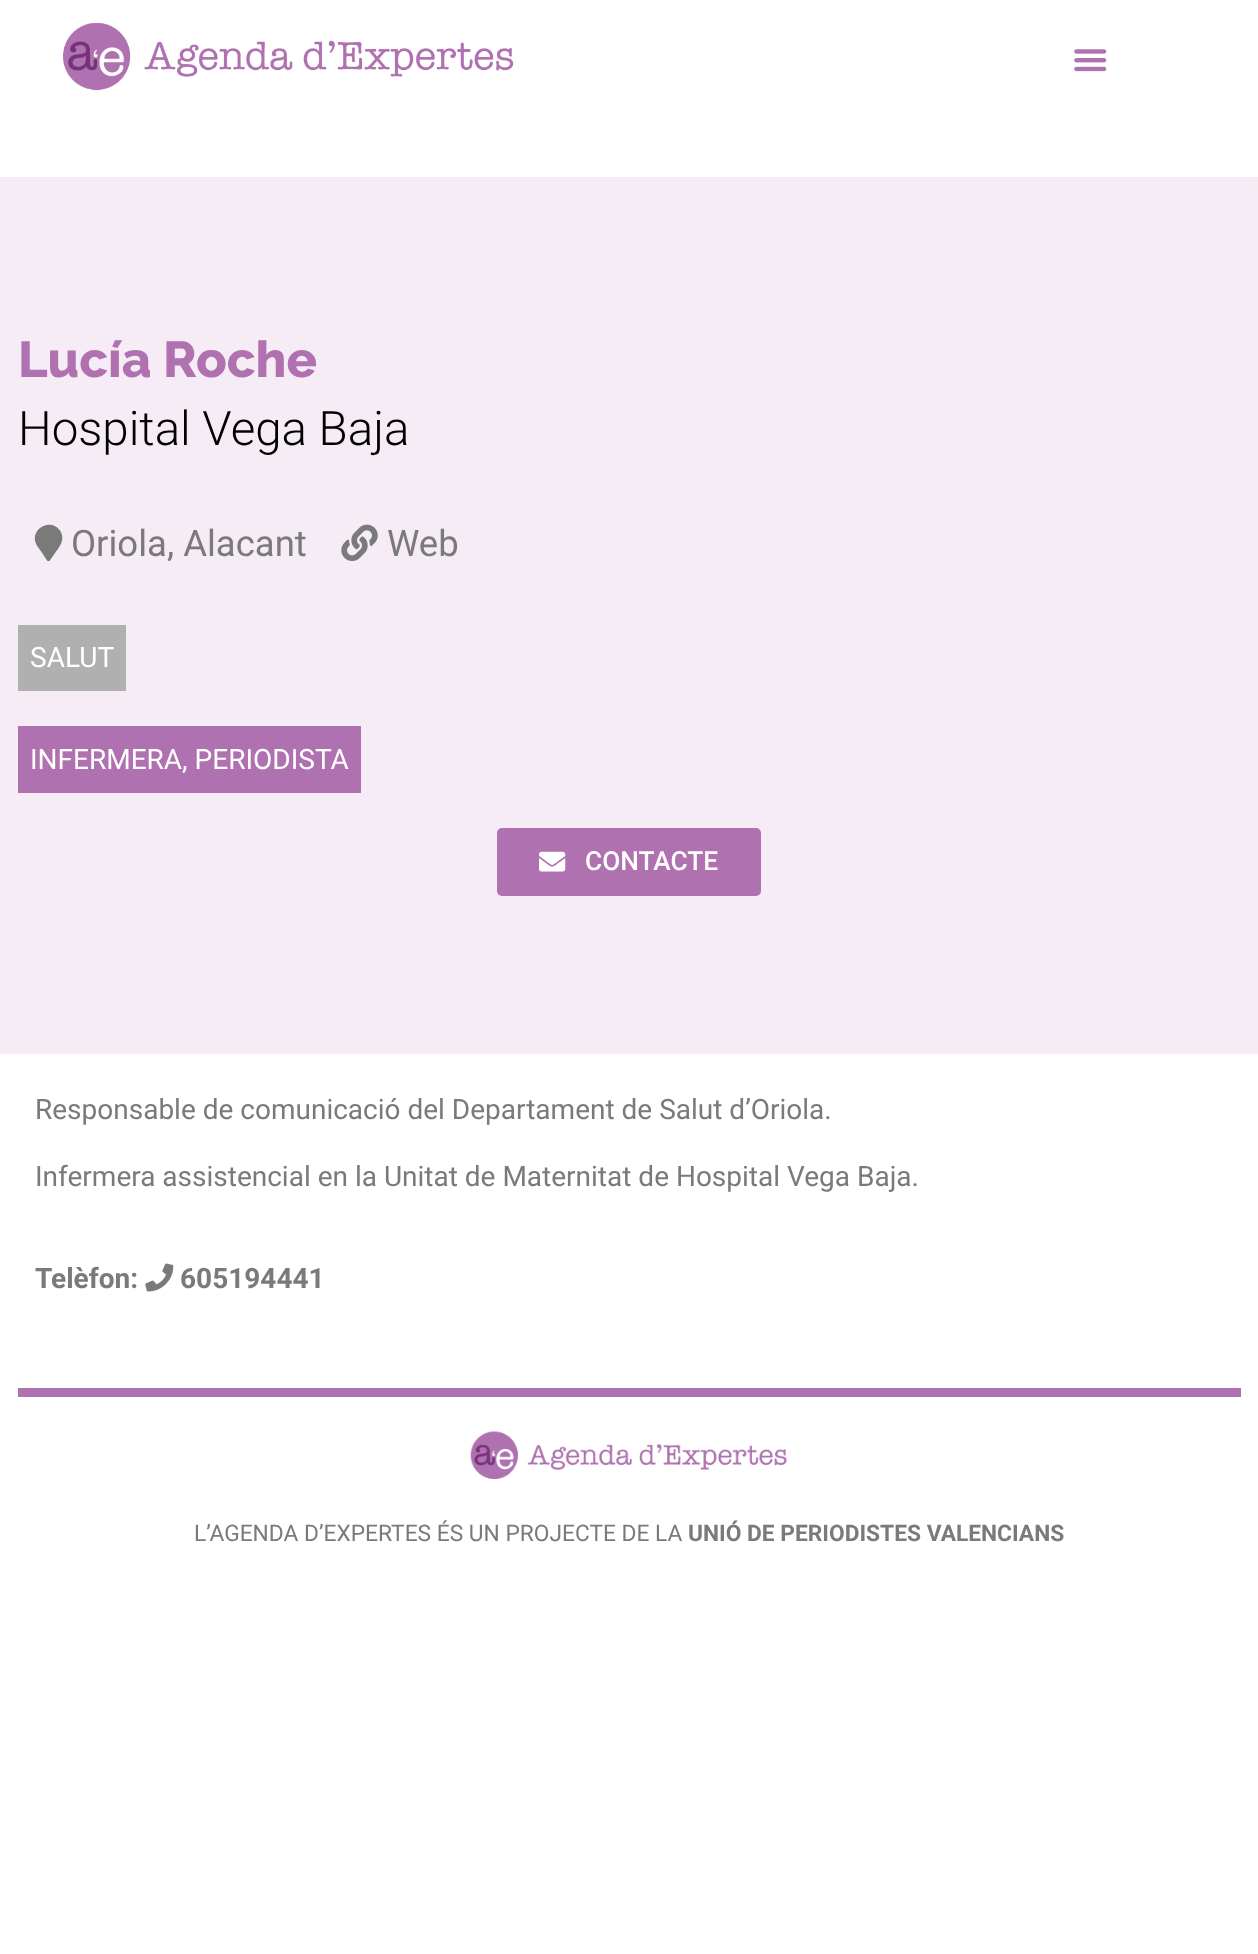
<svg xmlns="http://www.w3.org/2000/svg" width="1258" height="1954">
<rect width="100%" height="100%" fill="#fff"/>
<image x="63" y="23" width="451" height="68" href="media/1.png"/>
<image x="1074" y="49" width="33" height="23" href="media/2.png"/>
<rect y="177" width="1258" height="877" fill="#f5ecf5"/>
<text x="18" y="377" style="font-family:Raleway;font-size:50.5px;font-weight:800;fill:#af71b0">Lucía Roche</text>
<text x="18" y="445" style="font-family:Roboto;font-size:47.5px;font-weight:300;fill:#000">Hospital Vega Baja</text>
<path d="M47 560.5l-5.5-8.5c-2.5-3.5-5.5-7-6.5-11c-2.5-14.5 17-22.5 25-10.5c6 9.5-1 17-6 24l-4.5 6.5c-1 .5-2 0-2.5-.5z" fill="#7a7a7a"/>
<text x="71" y="556" style="font-family:Roboto;font-size:36.5px;fill:#7a7a7a">Oriola, Alacant</text>
<image x="341" y="524" width="37" height="37" href="media/3.png"/>
<text x="387" y="556" style="font-family:Roboto;font-size:36.5px;fill:#7a7a7a">Web</text>
<rect x="18" y="625" width="108" height="66" fill="#b0b0b0"/>
<text x="30" y="667" style="font-family:Roboto;font-size:28px;fill:#fff">SALUT</text>
<rect x="18" y="726" width="343" height="67" fill="#af71b0"/>
<text x="30" y="769" style="font-family:Roboto;font-size:28px;fill:#fff">INFERMERA, PERIODISTA</text>
<rect x="497" y="828" width="264" height="68" rx="5" fill="#af71b0"/>
<image x="539" y="851" width="27" height="21" href="media/4.png"/>
<text x="585" y="870" style="font-family:Roboto;font-size:26.25px;font-weight:500;fill:#fff">CONTACTE</text>
<text x="35" y="1119" style="font-family:Roboto;font-size:28px;fill:#7a7a7a">Responsable de comunicació del Departament de Salut d’Oriola.</text>
<text x="35" y="1186" style="font-family:Roboto;font-size:28px;fill:#7a7a7a">Infermera assistencial en la Unitat de Maternitat de Hospital Vega Baja.</text>
<text x="35" y="1288" style="font-family:Roboto;font-size:28px;font-weight:bold;fill:#7a7a7a">Telèfon:</text>
<image x="145" y="1263" width="29" height="29" href="media/5.png"/>
<text x="180" y="1288" style="font-family:Roboto;font-size:28px;font-weight:bold;fill:#7a7a7a">605194441</text>
<rect x="18" y="1388" width="1223" height="9" fill="#af71b0"/>
<image x="470" y="1431" width="317" height="49" href="media/6.png"/>
<text x="194" y="1541" style="font-family:Roboto;font-size:22.75px;fill:#7a7a7a">L’AGENDA D’EXPERTES ÉS UN PROJECTE DE LA</text>
<text x="688" y="1541" style="font-family:Roboto;font-size:22.75px;font-weight:bold;fill:#7a7a7a">UNIÓ DE PERIODISTES VALENCIANS</text>
</svg>
